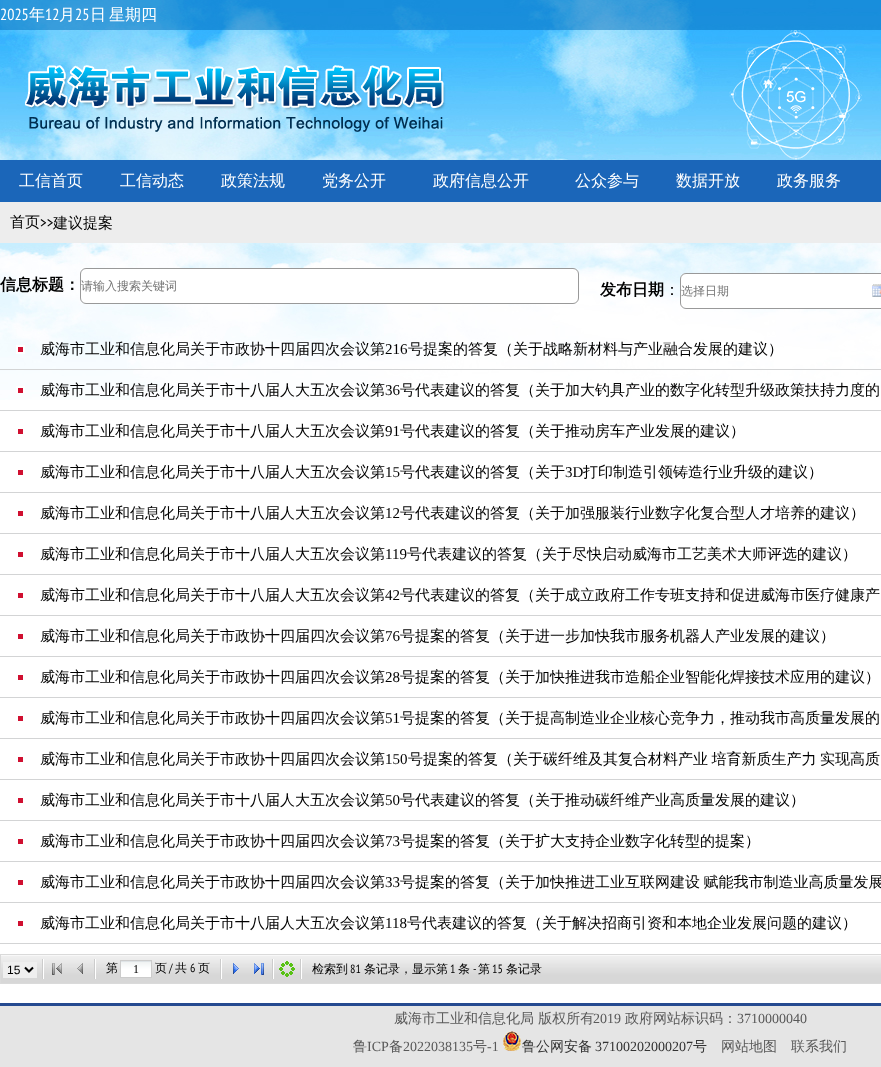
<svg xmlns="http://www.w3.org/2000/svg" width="881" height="1067">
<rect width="100%" height="100%" fill="#fff"/>
<image x="0" y="0" width="881" height="400" href="media/1.png"/>
<rect width="881" height="30" fill="#016cba80"/>
<text x="0" y="20" style="font-family:PT Sans Narrow;font-size:16px;fill:#fff">2025</text>
<text x="29" y="20" style="font-family:WenQuanYi Zen Hei;font-size:16px;font-weight:500;fill:#fff">年</text>
<text x="45" y="20" style="font-family:PT Sans Narrow;font-size:16px;fill:#fff">12</text>
<text x="59" y="20" style="font-family:WenQuanYi Zen Hei;font-size:16px;font-weight:500;fill:#fff">月</text>
<text x="75" y="20" style="font-family:PT Sans Narrow;font-size:16px;fill:#fff">25</text>
<text x="90" y="20" style="font-family:WenQuanYi Zen Hei;font-size:16px;font-weight:500;fill:#fff">日</text>
<text x="109" y="20" style="font-family:WenQuanYi Zen Hei;font-size:16px;font-weight:500;fill:#fff">星期四</text>
<image x="25" y="30" width="837" height="130" href="media/2.png"/>
<rect y="160" width="881" height="42" fill="#1b66b9"/>
<text x="19" y="186" style="font-family:WenQuanYi Zen Hei;font-size:16px;font-weight:500;fill:#fff">工信首页</text>
<text x="120" y="186" style="font-family:WenQuanYi Zen Hei;font-size:16px;font-weight:500;fill:#fff">工信动态</text>
<text x="221" y="186" style="font-family:WenQuanYi Zen Hei;font-size:16px;font-weight:500;fill:#fff">政策法规</text>
<text x="322" y="186" style="font-family:WenQuanYi Zen Hei;font-size:16px;font-weight:500;fill:#fff">党务公开</text>
<text x="433" y="186" style="font-family:WenQuanYi Zen Hei;font-size:16px;font-weight:500;fill:#fff">政府信息公开</text>
<text x="575" y="186" style="font-family:WenQuanYi Zen Hei;font-size:16px;font-weight:500;fill:#fff">公众参与</text>
<text x="676" y="186" style="font-family:WenQuanYi Zen Hei;font-size:16px;font-weight:500;fill:#fff">数据开放</text>
<text x="777" y="186" style="font-family:WenQuanYi Zen Hei;font-size:16px;font-weight:500;fill:#fff">政务服务</text>
<rect y="202" width="881" height="41" fill="#ededed"/>
<text x="10" y="227" style="font-family:WenQuanYi Zen Hei;font-size:15px;font-weight:500;fill:#000">首页</text>
<text x="40" y="228" style="font-family:PT Sans Narrow;font-size:16px;fill:#000">&gt;&gt;</text>
<text x="53" y="228" style="font-family:WenQuanYi Zen Hei;font-size:15px;font-weight:500;fill:#000">建议提案</text>
<text x="0" y="290" style="font-family:WenQuanYi Zen Hei;font-size:16px;font-weight:bold;fill:#000">信息标题：</text>
<rect x="80.5" y="268.5" width="498" height="35" rx="5.5" fill="#fff" stroke="#999"/>
<text x="81" y="290" style="font-family:WenQuanYi Zen Hei;font-size:12px;font-weight:500;fill:#757575">请输入搜索关键词</text>
<text x="600" y="295" style="font-family:WenQuanYi Zen Hei;font-size:16px;font-weight:bold;fill:#000">发布日期</text>
<text x="664" y="295" style="font-family:WenQuanYi Zen Hei;font-size:16px;font-weight:500;fill:#000">：</text>
<rect x="680" y="273" width="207" height="36" rx="6" fill="#fff"/>
<image x="872" y="284" width="9" height="13" href="media/3.png"/>
<rect x="680.5" y="273.5" width="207" height="35" rx="5.5" fill="none" stroke="#999"/>
<text x="681" y="295" style="font-family:WenQuanYi Zen Hei;font-size:12px;font-weight:500;fill:#757575">选择日期</text>
<image x="16" y="345" width="9" height="9" href="media/4.png"/>
<rect y="369" width="881" height="1" fill="#d3d4d5"/>
<text x="40" y="354" style="font-family:WenQuanYi Zen Hei;font-size:15px;font-weight:500;fill:#000">威海市工业和信息化局关于市政协十四届四次会议第</text>
<text x="385" y="354" style="font-family:Liberation Serif;font-size:15px;fill:#000">216</text>
<text x="408" y="354" style="font-family:WenQuanYi Zen Hei;font-size:15px;font-weight:500;fill:#000">号提案的答复（关于战略新材料与产业融合发展的建议）</text>
<image x="16" y="386" width="9" height="7" href="media/5.png"/>
<rect y="410" width="881" height="1" fill="#d3d4d5"/>
<text x="40" y="395" style="font-family:WenQuanYi Zen Hei;font-size:15px;font-weight:500;fill:#000">威海市工业和信息化局关于市十八届人大五次会议第</text>
<text x="385" y="395" style="font-family:Liberation Serif;font-size:15px;fill:#000">36</text>
<text x="400" y="395" style="font-family:WenQuanYi Zen Hei;font-size:15px;font-weight:500;fill:#000">号代表建议的答复（关于加大钓具产业的数字化转型升级政策扶持力度的</text>
<rect x="18" y="429" width="5" height="5" fill="#d00f30"/>
<rect y="451" width="881" height="1" fill="#d3d4d5"/>
<text x="40" y="436" style="font-family:WenQuanYi Zen Hei;font-size:15px;font-weight:500;fill:#000">威海市工业和信息化局关于市十八届人大五次会议第</text>
<text x="385" y="436" style="font-family:Liberation Serif;font-size:15px;fill:#000">91</text>
<text x="400" y="436" style="font-family:WenQuanYi Zen Hei;font-size:15px;font-weight:500;fill:#000">号代表建议的答复（关于推动房车产业发展的建议）</text>
<rect x="18" y="470" width="5" height="5" fill="#d00f30"/>
<rect y="492" width="881" height="1" fill="#d3d4d5"/>
<text x="40" y="477" style="font-family:WenQuanYi Zen Hei;font-size:15px;font-weight:500;fill:#000">威海市工业和信息化局关于市十八届人大五次会议第</text>
<text x="385" y="477" style="font-family:Liberation Serif;font-size:15px;fill:#000">15</text>
<text x="400" y="477" style="font-family:WenQuanYi Zen Hei;font-size:15px;font-weight:500;fill:#000">号代表建议的答复（关于</text>
<text x="565" y="477" style="font-family:Liberation Serif;font-size:15px;fill:#000">3D</text>
<text x="583" y="477" style="font-family:WenQuanYi Zen Hei;font-size:15px;font-weight:500;fill:#000">打印制造引领铸造行业升级的建议）</text>
<rect x="18" y="511" width="5" height="5" fill="#d00f30"/>
<rect y="533" width="881" height="1" fill="#d3d4d5"/>
<text x="40" y="518" style="font-family:WenQuanYi Zen Hei;font-size:15px;font-weight:500;fill:#000">威海市工业和信息化局关于市十八届人大五次会议第</text>
<text x="385" y="518" style="font-family:Liberation Serif;font-size:15px;fill:#000">12</text>
<text x="400" y="518" style="font-family:WenQuanYi Zen Hei;font-size:15px;font-weight:500;fill:#000">号代表建议的答复（关于加强服装行业数字化复合型人才培养的建议）</text>
<rect x="18" y="552" width="5" height="5" fill="#d00f30"/>
<rect y="574" width="881" height="1" fill="#d3d4d5"/>
<text x="40" y="559" style="font-family:WenQuanYi Zen Hei;font-size:15px;font-weight:500;fill:#000">威海市工业和信息化局关于市十八届人大五次会议第</text>
<text x="385" y="559" style="font-family:Liberation Serif;font-size:15px;fill:#000">119</text>
<text x="407" y="559" style="font-family:WenQuanYi Zen Hei;font-size:15px;font-weight:500;fill:#000">号代表建议的答复（关于尽快启动威海市工艺美术大师评选的建议）</text>
<rect x="18" y="593" width="5" height="5" fill="#d00f30"/>
<rect y="615" width="881" height="1" fill="#d3d4d5"/>
<text x="40" y="600" style="font-family:WenQuanYi Zen Hei;font-size:15px;font-weight:500;fill:#000">威海市工业和信息化局关于市十八届人大五次会议第</text>
<text x="385" y="600" style="font-family:Liberation Serif;font-size:15px;fill:#000">42</text>
<text x="400" y="600" style="font-family:WenQuanYi Zen Hei;font-size:15px;font-weight:500;fill:#000">号代表建议的答复（关于成立政府工作专班支持和促进威海市医疗健康产</text>
<rect x="18" y="634" width="5" height="5" fill="#d00f30"/>
<rect y="656" width="881" height="1" fill="#d3d4d5"/>
<text x="40" y="641" style="font-family:WenQuanYi Zen Hei;font-size:15px;font-weight:500;fill:#000">威海市工业和信息化局关于市政协十四届四次会议第</text>
<text x="385" y="641" style="font-family:Liberation Serif;font-size:15px;fill:#000">76</text>
<text x="400" y="641" style="font-family:WenQuanYi Zen Hei;font-size:15px;font-weight:500;fill:#000">号提案的答复（关于进一步加快我市服务机器人产业发展的建议）</text>
<rect x="18" y="675" width="5" height="5" fill="#d00f30"/>
<rect y="697" width="881" height="1" fill="#d3d4d5"/>
<text x="40" y="682" style="font-family:WenQuanYi Zen Hei;font-size:15px;font-weight:500;fill:#000">威海市工业和信息化局关于市政协十四届四次会议第</text>
<text x="385" y="682" style="font-family:Liberation Serif;font-size:15px;fill:#000">28</text>
<text x="400" y="682" style="font-family:WenQuanYi Zen Hei;font-size:15px;font-weight:500;fill:#000">号提案的答复（关于加快推进我市造船企业智能化焊接技术应用的建议）</text>
<rect x="18" y="716" width="5" height="5" fill="#d00f30"/>
<rect y="738" width="881" height="1" fill="#d3d4d5"/>
<text x="40" y="723" style="font-family:WenQuanYi Zen Hei;font-size:15px;font-weight:500;fill:#000">威海市工业和信息化局关于市政协十四届四次会议第</text>
<text x="385" y="723" style="font-family:Liberation Serif;font-size:15px;fill:#000">51</text>
<text x="400" y="723" style="font-family:WenQuanYi Zen Hei;font-size:15px;font-weight:500;fill:#000">号提案的答复（关于提高制造业企业核心竞争力，推动我市高质量发展的</text>
<rect x="18" y="757" width="5" height="5" fill="#d00f30"/>
<rect y="779" width="881" height="1" fill="#d3d4d5"/>
<text x="40" y="764" style="font-family:WenQuanYi Zen Hei;font-size:15px;font-weight:500;fill:#000">威海市工业和信息化局关于市政协十四届四次会议第</text>
<text x="385" y="764" style="font-family:Liberation Serif;font-size:15px;fill:#000">150</text>
<text x="408" y="764" word-spacing="-1" style="font-family:WenQuanYi Zen Hei;font-size:15px;font-weight:500;fill:#000">号提案的答复（关于碳纤维及其复合材料产业 培育新质生产力 实现高质</text>
<rect x="18" y="798" width="5" height="5" fill="#d00f30"/>
<rect y="820" width="881" height="1" fill="#d3d4d5"/>
<text x="40" y="805" style="font-family:WenQuanYi Zen Hei;font-size:15px;font-weight:500;fill:#000">威海市工业和信息化局关于市十八届人大五次会议第</text>
<text x="385" y="805" style="font-family:Liberation Serif;font-size:15px;fill:#000">50</text>
<text x="400" y="805" style="font-family:WenQuanYi Zen Hei;font-size:15px;font-weight:500;fill:#000">号代表建议的答复（关于推动碳纤维产业高质量发展的建议）</text>
<rect x="18" y="839" width="5" height="5" fill="#d00f30"/>
<rect y="861" width="881" height="1" fill="#d3d4d5"/>
<text x="40" y="846" style="font-family:WenQuanYi Zen Hei;font-size:15px;font-weight:500;fill:#000">威海市工业和信息化局关于市政协十四届四次会议第</text>
<text x="385" y="846" style="font-family:Liberation Serif;font-size:15px;fill:#000">73</text>
<text x="400" y="846" style="font-family:WenQuanYi Zen Hei;font-size:15px;font-weight:500;fill:#000">号提案的答复（关于扩大支持企业数字化转型的提案）</text>
<rect x="18" y="880" width="5" height="5" fill="#d00f30"/>
<rect y="902" width="881" height="1" fill="#d3d4d5"/>
<text x="40" y="887" style="font-family:WenQuanYi Zen Hei;font-size:15px;font-weight:500;fill:#000">威海市工业和信息化局关于市政协十四届四次会议第</text>
<text x="385" y="887" style="font-family:Liberation Serif;font-size:15px;fill:#000">33</text>
<text x="400" y="887" word-spacing="-1" style="font-family:WenQuanYi Zen Hei;font-size:15px;font-weight:500;fill:#000">号提案的答复（关于加快推进工业互联网建设 赋能我市制造业高质量发展</text>
<rect x="18" y="921" width="5" height="5" fill="#d00f30"/>
<rect y="943" width="881" height="1" fill="#d3d4d5"/>
<text x="40" y="928" style="font-family:WenQuanYi Zen Hei;font-size:15px;font-weight:500;fill:#000">威海市工业和信息化局关于市十八届人大五次会议第</text>
<text x="385" y="928" style="font-family:Liberation Serif;font-size:15px;fill:#000">118</text>
<text x="407" y="928" style="font-family:WenQuanYi Zen Hei;font-size:15px;font-weight:500;fill:#000">号代表建议的答复（关于解决招商引资和本地企业发展问题的建议）</text>
<image x="1" y="955" width="880" height="28" href="media/6.png"/>
<rect y="954" width="881" height="1" fill="#dadada"/>
<rect y="983" width="881" height="1" fill="#dadada"/>
<rect y="954" width="1" height="30" fill="#dadada"/>
<rect x="3" y="962" width="34" height="16" fill="#efefef"/>
<path d="M25 967.5l4 4l4-4" fill="none" stroke="#000" stroke-width="2"/>
<text x="7" y="974" style="font-family:Liberation Sans;font-size:12px;fill:#000">15</text>
<image x="42" y="959" width="2" height="20" href="media/7.png"/>
<image x="52" y="963" width="10" height="12" href="media/8.png"/>
<image x="77" y="963" width="6" height="11" href="media/9.png"/>
<image x="94" y="959" width="2" height="20" href="media/7.png"/>
<text x="106" y="972" style="font-family:WenQuanYi Zen Hei;font-size:12px;font-weight:500;fill:#000">第</text>
<image x="121" y="961" width="30" height="16" href="media/10.png"/>
<rect x="120.5" y="960.5" width="31" height="17" fill="none" stroke="#ccc"/>
<text x="133" y="973" style="font-family:Liberation Serif;font-size:12px;fill:#000">1</text>
<text x="155" y="972" style="font-family:WenQuanYi Zen Hei;font-size:12px;font-weight:500;fill:#000">页</text>
<text x="169" y="972" style="font-family:PT Sans Narrow;font-size:12px;fill:#000">/</text>
<text x="175" y="972" style="font-family:WenQuanYi Zen Hei;font-size:12px;font-weight:500;fill:#000">共</text>
<text x="190" y="972" style="font-family:PT Sans Narrow;font-size:12px;fill:#000">6</text>
<text x="198" y="972" style="font-family:WenQuanYi Zen Hei;font-size:12px;font-weight:500;fill:#000">页</text>
<image x="220" y="959" width="2" height="20" href="media/7.png"/>
<image x="233" y="963" width="6" height="11" href="media/11.png"/>
<image x="254" y="963" width="10" height="12" href="media/12.png"/>
<image x="272" y="959" width="2" height="20" href="media/7.png"/>
<image x="279" y="961" width="16" height="16" href="media/13.png"/>
<image x="300" y="959" width="2" height="20" href="media/7.png"/>
<text x="312" y="973" style="font-family:WenQuanYi Zen Hei;font-size:12px;font-weight:500;fill:#000">检索到</text>
<text x="350" y="973" style="font-family:PT Sans Narrow;font-size:12px;fill:#000">81</text>
<text x="364" y="973" style="font-family:WenQuanYi Zen Hei;font-size:12px;font-weight:500;fill:#000">条记录，显示第</text>
<text x="450" y="973" style="font-family:PT Sans Narrow;font-size:12px;fill:#000">1</text>
<text x="458" y="973" style="font-family:WenQuanYi Zen Hei;font-size:12px;font-weight:500;fill:#000">条</text>
<text x="473" y="973" style="font-family:PT Sans Narrow;font-size:12px;fill:#000">-</text>
<text x="478" y="973" style="font-family:WenQuanYi Zen Hei;font-size:12px;font-weight:500;fill:#000">第</text>
<text x="492" y="973" style="font-family:PT Sans Narrow;font-size:12px;fill:#000">15</text>
<text x="506" y="973" style="font-family:WenQuanYi Zen Hei;font-size:12px;font-weight:500;fill:#000">条记录</text>
<rect y="1006" width="881" height="61" fill="#e5e5e5"/>
<rect y="1003" width="881" height="3" fill="#254a90"/>
<text x="394" y="1023" style="font-family:WenQuanYi Zen Hei;font-size:14px;font-weight:500;fill:#595959">威海市工业和信息化局 版权所有</text>
<text x="593" y="1023" style="font-family:Liberation Serif;font-size:14px;fill:#595959">2019</text>
<text x="625" y="1023" style="font-family:WenQuanYi Zen Hei;font-size:14px;font-weight:500;fill:#595959">政府网站标识码：</text>
<text x="737" y="1023" style="font-family:Liberation Serif;font-size:14px;fill:#595959">3710000040</text>
<text x="353" y="1051" style="font-family:WenQuanYi Zen Hei;font-size:14px;font-weight:500;fill:#595959">鲁</text>
<text x="367" y="1051" style="font-family:Liberation Serif;font-size:14px;fill:#595959">ICP</text>
<text x="389" y="1051" style="font-family:WenQuanYi Zen Hei;font-size:14px;font-weight:500;fill:#595959">备</text>
<text x="403" y="1051" style="font-family:Liberation Serif;font-size:14px;fill:#595959">2022038135</text>
<text x="473" y="1051" style="font-family:WenQuanYi Zen Hei;font-size:14px;font-weight:500;fill:#595959">号</text>
<text x="487" y="1051" style="font-family:Liberation Serif;font-size:14px;fill:#595959">-1</text>
<image x="503" y="1031" width="18" height="20" href="media/14.png"/>
<text x="522" y="1051" style="font-family:WenQuanYi Zen Hei;font-size:14px;font-weight:500;fill:#333">鲁公网安备</text>
<text x="595" y="1051" style="font-family:Liberation Serif;font-size:14px;fill:#333">37100202000207</text>
<text x="693" y="1051" style="font-family:WenQuanYi Zen Hei;font-size:14px;font-weight:500;fill:#333">号</text>
<text x="721" y="1051" style="font-family:WenQuanYi Zen Hei;font-size:14px;font-weight:500;fill:#595959">网站地图</text>
<text x="791" y="1051" style="font-family:WenQuanYi Zen Hei;font-size:14px;font-weight:500;fill:#595959">联系我们</text>
</svg>
